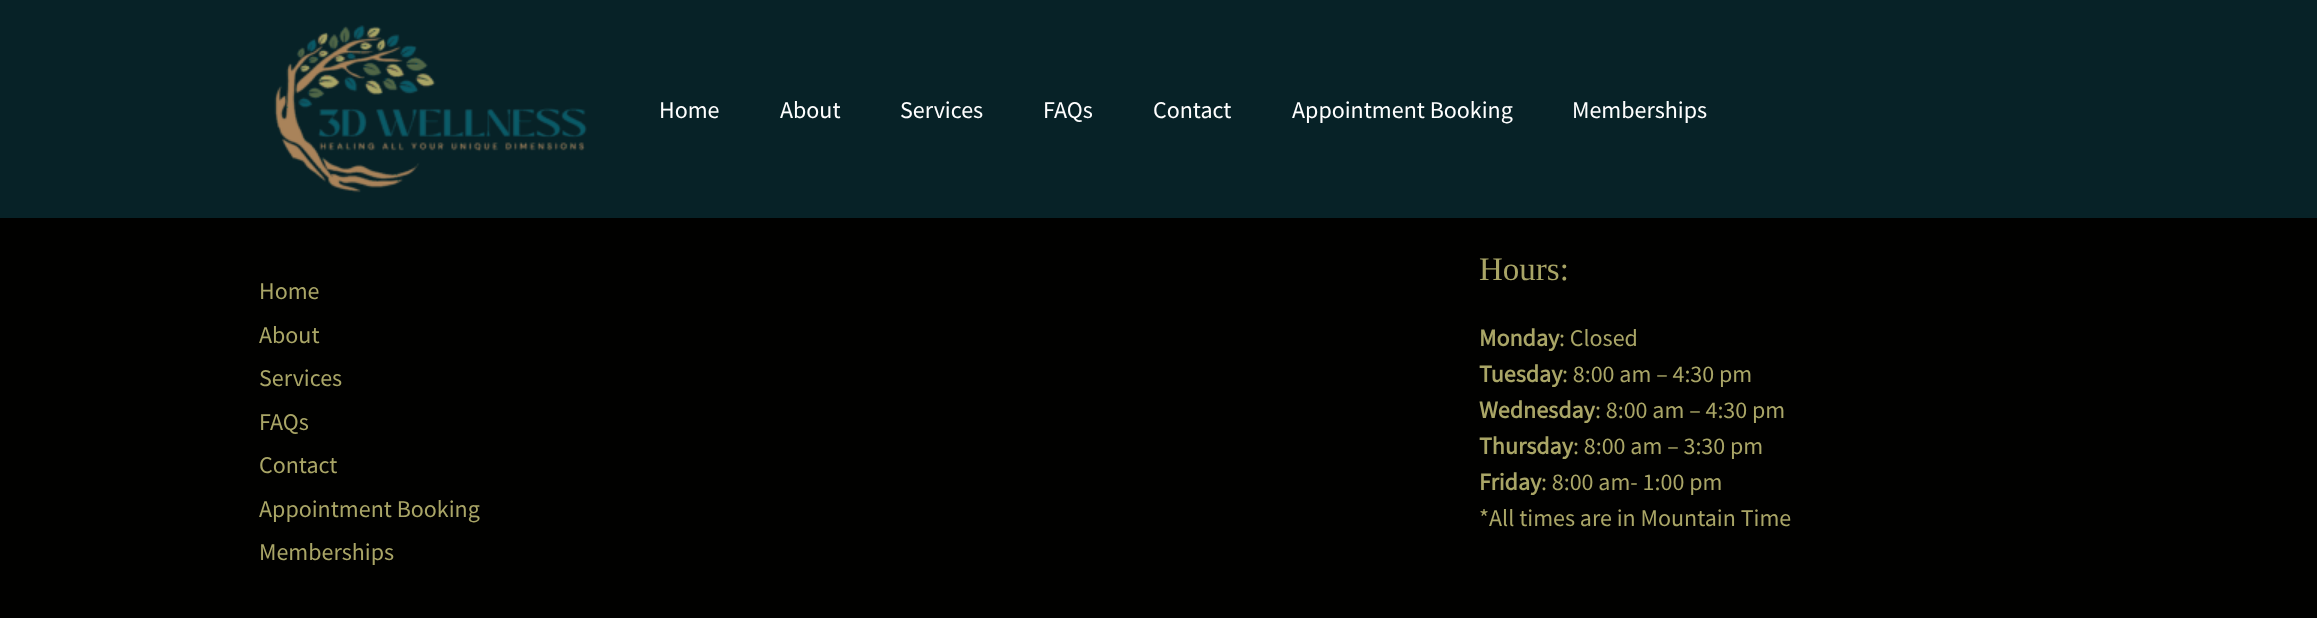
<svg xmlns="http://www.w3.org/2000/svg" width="2317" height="618">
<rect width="100%" height="100%" fill="#010100"/>
<rect width="2317" height="218" fill="#072227"/>
<image x="274" y="25" width="313" height="168" href="media/1.png"/>
<text x="659" y="118" style="font-family:Source Sans Pro;font-size:24px;fill:#fff">Home</text>
<text x="780" y="118" style="font-family:Source Sans Pro;font-size:24px;fill:#fff">About</text>
<text x="900" y="118" style="font-family:Source Sans Pro;font-size:24px;fill:#fff">Services</text>
<text x="1043" y="118" style="font-family:Source Sans Pro;font-size:24px;fill:#fff">FAQs</text>
<text x="1153" y="118" style="font-family:Source Sans Pro;font-size:24px;fill:#fff">Contact</text>
<text x="1292" y="118" style="font-family:Source Sans Pro;font-size:24px;fill:#fff">Appointment Booking</text>
<text x="1572" y="118" style="font-family:Source Sans Pro;font-size:24px;fill:#fff">Memberships</text>
<text x="259" y="299" style="font-family:Source Sans Pro;font-size:24px;fill:#a9a566">Home</text>
<text x="259" y="343" style="font-family:Source Sans Pro;font-size:24px;fill:#a9a566">About</text>
<text x="259" y="386" style="font-family:Source Sans Pro;font-size:24px;fill:#a9a566">Services</text>
<text x="259" y="430" style="font-family:Source Sans Pro;font-size:24px;fill:#a9a566">FAQs</text>
<text x="259" y="473" style="font-family:Source Sans Pro;font-size:24px;fill:#a9a566">Contact</text>
<text x="259" y="517" style="font-family:Source Sans Pro;font-size:24px;fill:#a9a566">Appointment Booking</text>
<text x="259" y="560" style="font-family:Source Sans Pro;font-size:24px;fill:#a9a566">Memberships</text>
<text x="1479" y="280" style="font-family:Liberation Serif;font-size:33px;fill:#a9a566">Hours:</text>
<text x="1479" y="346" style="font-family:Source Sans Pro;font-size:24px;font-weight:bold;fill:#a9a566">Monday</text>
<text x="1559" y="346" style="font-family:Source Sans Pro;font-size:24px;fill:#a9a566">: Closed</text>
<text x="1479" y="382" style="font-family:Source Sans Pro;font-size:24px;font-weight:bold;fill:#a9a566">Tuesday</text>
<text x="1562" y="382" style="font-family:Source Sans Pro;font-size:24px;fill:#a9a566">: 8:00 am – 4:30 pm</text>
<text x="1479" y="418" style="font-family:Source Sans Pro;font-size:24px;font-weight:bold;fill:#a9a566">Wednesday</text>
<text x="1595" y="418" style="font-family:Source Sans Pro;font-size:24px;fill:#a9a566">: 8:00 am – 4:30 pm</text>
<text x="1479" y="454" style="font-family:Source Sans Pro;font-size:24px;font-weight:bold;fill:#a9a566">Thursday</text>
<text x="1573" y="454" style="font-family:Source Sans Pro;font-size:24px;fill:#a9a566">: 8:00 am – 3:30 pm</text>
<text x="1479" y="490" style="font-family:Source Sans Pro;font-size:24px;font-weight:bold;fill:#a9a566">Friday</text>
<text x="1541" y="490" style="font-family:Source Sans Pro;font-size:24px;fill:#a9a566">: 8:00 am- 1:00 pm</text>
<text x="1479" y="526" style="font-family:Source Sans Pro;font-size:24px;fill:#a9a566">*All times are in Mountain Time</text>
</svg>
